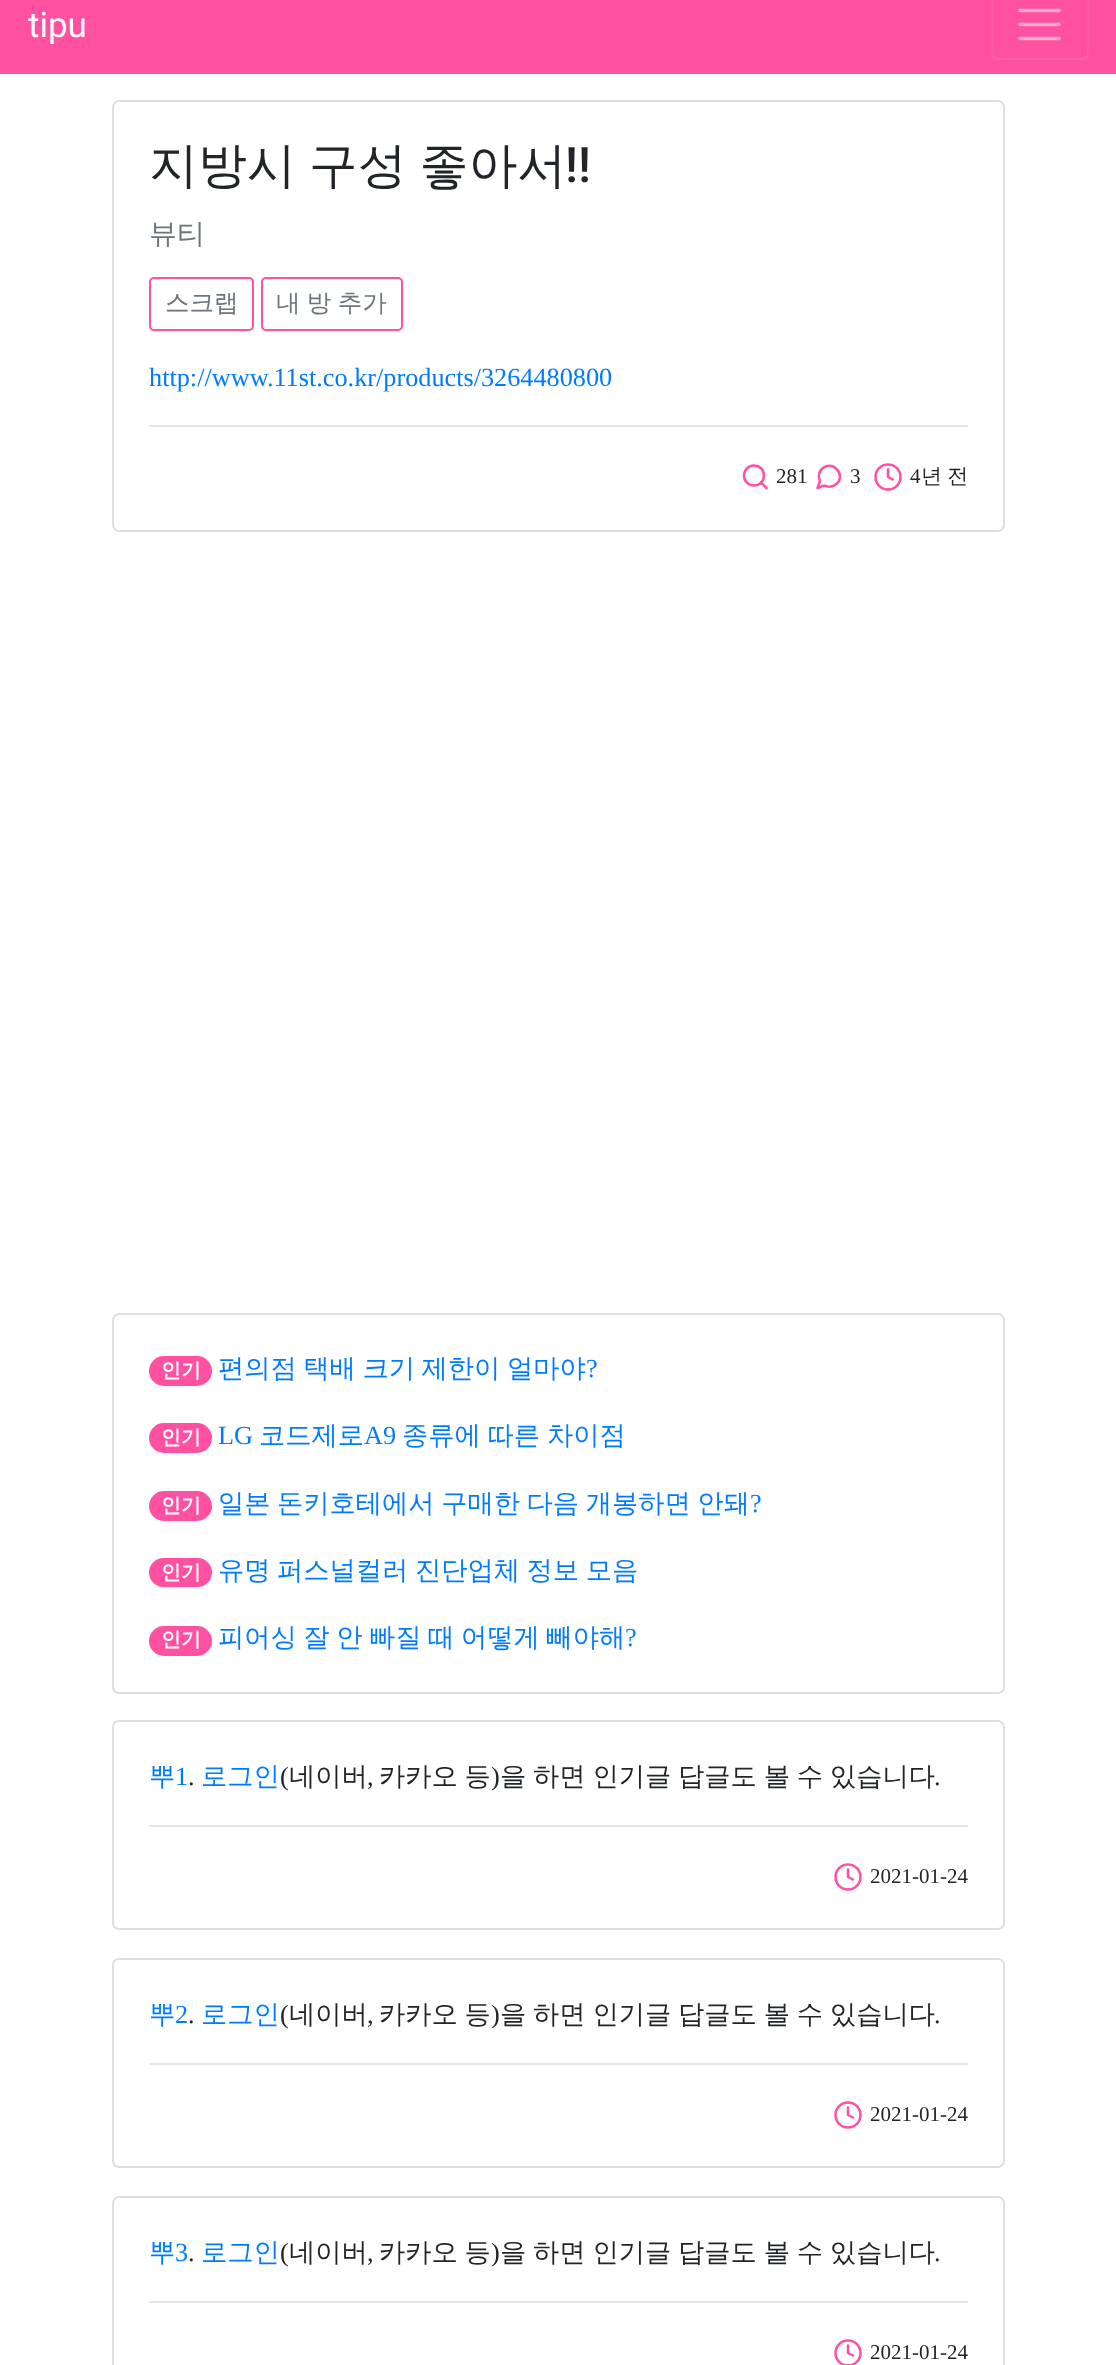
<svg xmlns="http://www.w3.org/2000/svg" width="1116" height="2365">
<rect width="100%" height="100%" fill="#fff"/>
<rect width="1116" height="74" fill="#ff50a1"/>
<text x="28" y="37" style="font-family:Roboto;font-size:35px;fill:#fff">tipu</text>
<rect x="992" y="-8" width="96" height="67" rx="6" fill="none" stroke="#ff62aa" stroke-width="2"/>
<path d="M1020 10.5h39m-39 14h39m-39 14h39" fill="none" stroke="#ffa8d0" stroke-width="3.5" stroke-linecap="round"/>
<rect x="113" y="101" width="891" height="430" rx="6" fill="none" stroke="#dfdfdf" stroke-width="2"/>
<text x="149" y="182" word-spacing="-2" style="font-family:WenQuanYi Zen Hei;font-size:49px;font-weight:500;fill:#212529">지방시 구성 좋아서</text>
<text x="565" y="182" style="font-family:Roboto;font-size:49px;font-weight:500;fill:#212529">!!</text>
<text x="149" y="243" style="font-family:WenQuanYi Zen Hei;font-size:28px;font-weight:500;fill:#6c757d">뷰티</text>
<rect x="150" y="278" width="103" height="52" rx="4" fill="none" stroke="#ff50a1" stroke-width="2"/>
<text x="165" y="311" style="font-family:WenQuanYi Zen Hei;font-size:24.5px;font-weight:500;fill:#6c757d">스크랩</text>
<rect x="262" y="278" width="140" height="52" rx="4" fill="none" stroke="#ff50a1" stroke-width="2"/>
<text x="276" y="311" word-spacing="-1" style="font-family:WenQuanYi Zen Hei;font-size:24.5px;font-weight:500;fill:#6c757d">내 방 추가</text>
<text x="149" y="386" style="font-family:Liberation Serif;font-size:26.25px;fill:#007bff">http://www.11st.co.kr/products/3264480800</text>
<rect x="149" y="425" width="819" height="2" fill="#e6e6e6"/>
<circle cx="754" cy="475.5" r="10" fill="none" stroke="#ff50a1" stroke-width="2.5"/>
<path d="M840 476.5c0 7.5-8.5 12.5-15.5 9l-7 2.5l2.5-7c-5.5-10.5 8.5-20.5 16.5-12c2 2 3.5 4.5 3.5 7.5z" fill="none" stroke="#ff50a1" stroke-width="2.5" stroke-linecap="round" stroke-linejoin="round"/>
<circle cx="888" cy="477" r="12.5" fill="none" stroke="#ff50a1" stroke-width="2.5"/>
<text x="921" y="483" word-spacing="-1" style="font-family:WenQuanYi Zen Hei;font-size:21px;font-weight:500;fill:#212529">년 전</text>
<text x="776" y="483" style="font-family:Liberation Serif;font-size:21px;fill:#212529">281</text>
<text x="850" y="483" style="font-family:Liberation Serif;font-size:21px;fill:#212529">3</text>
<path d="M888 469.5v7.5l5 2.5" fill="none" stroke="#ff50a1" stroke-width="2.5" stroke-linecap="round" stroke-linejoin="round"/>
<text x="910" y="483" style="font-family:Liberation Serif;font-size:21px;fill:#212529">4</text>
<path d="M766.5 488l-5.5-5.5" fill="none" stroke="#ff50a1" stroke-width="2.5" stroke-linecap="round" stroke-linejoin="round"/>
<rect x="113" y="1314" width="891" height="379" rx="6" fill="none" stroke="#dfdfdf" stroke-width="2"/>
<rect x="149" y="1356" width="63" height="30" rx="15" fill="#ff50a1"/>
<text x="161" y="1377" style="font-family:WenQuanYi Zen Hei;font-size:20px;font-weight:bold;fill:#fff">인기</text>
<text x="218" y="1377" word-spacing="-1.25" style="font-family:WenQuanYi Zen Hei;font-size:26.25px;font-weight:500;fill:#007bff">편의점 택배 크기 제한이 얼마야</text>
<text x="586" y="1377" style="font-family:Liberation Serif;font-size:26.25px;fill:#007bff">?</text>
<rect x="149" y="1423" width="63" height="30" rx="15" fill="#ff50a1"/>
<text x="161" y="1444" style="font-family:WenQuanYi Zen Hei;font-size:20px;font-weight:bold;fill:#fff">인기</text>
<text x="218" y="1444" style="font-family:Liberation Serif;font-size:26.25px;fill:#007bff">LG</text>
<text x="259" y="1444" style="font-family:WenQuanYi Zen Hei;font-size:26.25px;font-weight:500;fill:#007bff">코드제로</text>
<text x="364" y="1444" style="font-family:Liberation Serif;font-size:26.25px;fill:#007bff">A9</text>
<text x="402" y="1444" word-spacing="-1" style="font-family:WenQuanYi Zen Hei;font-size:26.25px;font-weight:500;fill:#007bff">종류에 따른 차이점</text>
<rect x="149" y="1491" width="63" height="30" rx="15" fill="#ff50a1"/>
<text x="161" y="1512" style="font-family:WenQuanYi Zen Hei;font-size:20px;font-weight:bold;fill:#fff">인기</text>
<text x="218" y="1512" word-spacing="-1.25" style="font-family:WenQuanYi Zen Hei;font-size:26.25px;font-weight:500;fill:#007bff">일본 돈키호테에서 구매한 다음 개봉하면 안돼</text>
<text x="750" y="1512" style="font-family:Liberation Serif;font-size:26.25px;fill:#007bff">?</text>
<rect x="149" y="1558" width="63" height="29" rx="14.5" fill="#ff50a1"/>
<text x="161" y="1579" style="font-family:WenQuanYi Zen Hei;font-size:20px;font-weight:bold;fill:#fff">인기</text>
<text x="218" y="1579" word-spacing="-1.25" style="font-family:WenQuanYi Zen Hei;font-size:26.25px;font-weight:500;fill:#007bff">유명 퍼스널컬러 진단업체 정보 모음</text>
<rect x="149" y="1626" width="63" height="30" rx="15" fill="#ff50a1"/>
<text x="161" y="1646" style="font-family:WenQuanYi Zen Hei;font-size:20px;font-weight:bold;fill:#fff">인기</text>
<text x="218" y="1646" word-spacing="-1.25" style="font-family:WenQuanYi Zen Hei;font-size:26.25px;font-weight:500;fill:#007bff">피어싱 잘 안 빠질 때 어떻게 빼야해</text>
<text x="625" y="1646" style="font-family:Liberation Serif;font-size:26.25px;fill:#007bff">?</text>
<rect x="113" y="1721" width="891" height="208" rx="6" fill="none" stroke="#dfdfdf" stroke-width="2"/>
<text x="149" y="1785" style="font-family:WenQuanYi Zen Hei;font-size:26.25px;font-weight:500;fill:#007bff">뿌</text>
<text x="175" y="1785" style="font-family:Liberation Serif;font-size:26.25px;fill:#007bff">1</text>
<text x="188" y="1785" style="font-family:Liberation Serif;font-size:26.25px;fill:#212529">.</text>
<text x="201" y="1785" style="font-family:WenQuanYi Zen Hei;font-size:26.25px;font-weight:500;fill:#007bff">로그인</text>
<text x="280" y="1785" style="font-family:Liberation Serif;font-size:26.25px;fill:#212529">(</text>
<text x="289" y="1785" style="font-family:WenQuanYi Zen Hei;font-size:26.25px;font-weight:500;fill:#212529">네이버</text>
<text x="367" y="1785" style="font-family:Liberation Serif;font-size:26.25px;fill:#212529">,</text>
<text x="379" y="1785" word-spacing="-1" style="font-family:WenQuanYi Zen Hei;font-size:26.25px;font-weight:500;fill:#212529">카카오 등</text>
<text x="491" y="1785" style="font-family:Liberation Serif;font-size:26.25px;fill:#212529">)</text>
<text x="500" y="1785" word-spacing="-1" style="font-family:WenQuanYi Zen Hei;font-size:26.25px;font-weight:500;fill:#212529">을 하면 인기글 답글도 볼 수 있습니다</text>
<text x="934" y="1785" style="font-family:Liberation Serif;font-size:26.25px;fill:#212529">.</text>
<rect x="149" y="1825" width="819" height="2" fill="#e6e6e6"/>
<circle cx="848" cy="1877" r="12.5" fill="none" stroke="#ff50a1" stroke-width="2.5"/>
<path d="M848 1869.5v7.5l5 2.5" fill="none" stroke="#ff50a1" stroke-width="2.5" stroke-linecap="round" stroke-linejoin="round"/>
<text x="870" y="1883" style="font-family:Liberation Serif;font-size:21px;fill:#212529">2021-01-24</text>
<rect x="113" y="1959" width="891" height="208" rx="6" fill="none" stroke="#dfdfdf" stroke-width="2"/>
<text x="149" y="2023" style="font-family:WenQuanYi Zen Hei;font-size:26.25px;font-weight:500;fill:#007bff">뿌</text>
<text x="175" y="2023" style="font-family:Liberation Serif;font-size:26.25px;fill:#007bff">2</text>
<text x="188" y="2023" style="font-family:Liberation Serif;font-size:26.25px;fill:#212529">.</text>
<text x="201" y="2023" style="font-family:WenQuanYi Zen Hei;font-size:26.25px;font-weight:500;fill:#007bff">로그인</text>
<text x="280" y="2023" style="font-family:Liberation Serif;font-size:26.25px;fill:#212529">(</text>
<text x="289" y="2023" style="font-family:WenQuanYi Zen Hei;font-size:26.25px;font-weight:500;fill:#212529">네이버</text>
<text x="367" y="2023" style="font-family:Liberation Serif;font-size:26.25px;fill:#212529">,</text>
<text x="379" y="2023" word-spacing="-1" style="font-family:WenQuanYi Zen Hei;font-size:26.25px;font-weight:500;fill:#212529">카카오 등</text>
<text x="491" y="2023" style="font-family:Liberation Serif;font-size:26.25px;fill:#212529">)</text>
<text x="500" y="2023" word-spacing="-1" style="font-family:WenQuanYi Zen Hei;font-size:26.25px;font-weight:500;fill:#212529">을 하면 인기글 답글도 볼 수 있습니다</text>
<text x="934" y="2023" style="font-family:Liberation Serif;font-size:26.25px;fill:#212529">.</text>
<rect x="149" y="2063" width="819" height="2" fill="#e6e6e6"/>
<circle cx="848" cy="2115" r="12.5" fill="none" stroke="#ff50a1" stroke-width="2.5"/>
<path d="M848 2107.5v7.5l5 2.5" fill="none" stroke="#ff50a1" stroke-width="2.5" stroke-linecap="round" stroke-linejoin="round"/>
<text x="870" y="2121" style="font-family:Liberation Serif;font-size:21px;fill:#212529">2021-01-24</text>
<rect x="113" y="2197" width="891" height="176" rx="6" fill="none" stroke="#dfdfdf" stroke-width="2"/>
<text x="149" y="2261" style="font-family:WenQuanYi Zen Hei;font-size:26.25px;font-weight:500;fill:#007bff">뿌</text>
<text x="175" y="2261" style="font-family:Liberation Serif;font-size:26.25px;fill:#007bff">3</text>
<text x="188" y="2261" style="font-family:Liberation Serif;font-size:26.25px;fill:#212529">.</text>
<text x="201" y="2261" style="font-family:WenQuanYi Zen Hei;font-size:26.25px;font-weight:500;fill:#007bff">로그인</text>
<text x="280" y="2261" style="font-family:Liberation Serif;font-size:26.25px;fill:#212529">(</text>
<text x="289" y="2261" style="font-family:WenQuanYi Zen Hei;font-size:26.25px;font-weight:500;fill:#212529">네이버</text>
<text x="367" y="2261" style="font-family:Liberation Serif;font-size:26.25px;fill:#212529">,</text>
<text x="379" y="2261" word-spacing="-1" style="font-family:WenQuanYi Zen Hei;font-size:26.25px;font-weight:500;fill:#212529">카카오 등</text>
<text x="491" y="2261" style="font-family:Liberation Serif;font-size:26.25px;fill:#212529">)</text>
<text x="500" y="2261" word-spacing="-1" style="font-family:WenQuanYi Zen Hei;font-size:26.25px;font-weight:500;fill:#212529">을 하면 인기글 답글도 볼 수 있습니다</text>
<text x="934" y="2261" style="font-family:Liberation Serif;font-size:26.25px;fill:#212529">.</text>
<rect x="149" y="2301" width="819" height="2" fill="#e6e6e6"/>
<circle cx="848" cy="2353" r="12.5" fill="none" stroke="#ff50a1" stroke-width="2.5"/>
<path d="M848 2345.5v7.5l5 2.5" fill="none" stroke="#ff50a1" stroke-width="2.5" stroke-linecap="round" stroke-linejoin="round"/>
<text x="870" y="2359" style="font-family:Liberation Serif;font-size:21px;fill:#212529">2021-01-24</text>
</svg>
